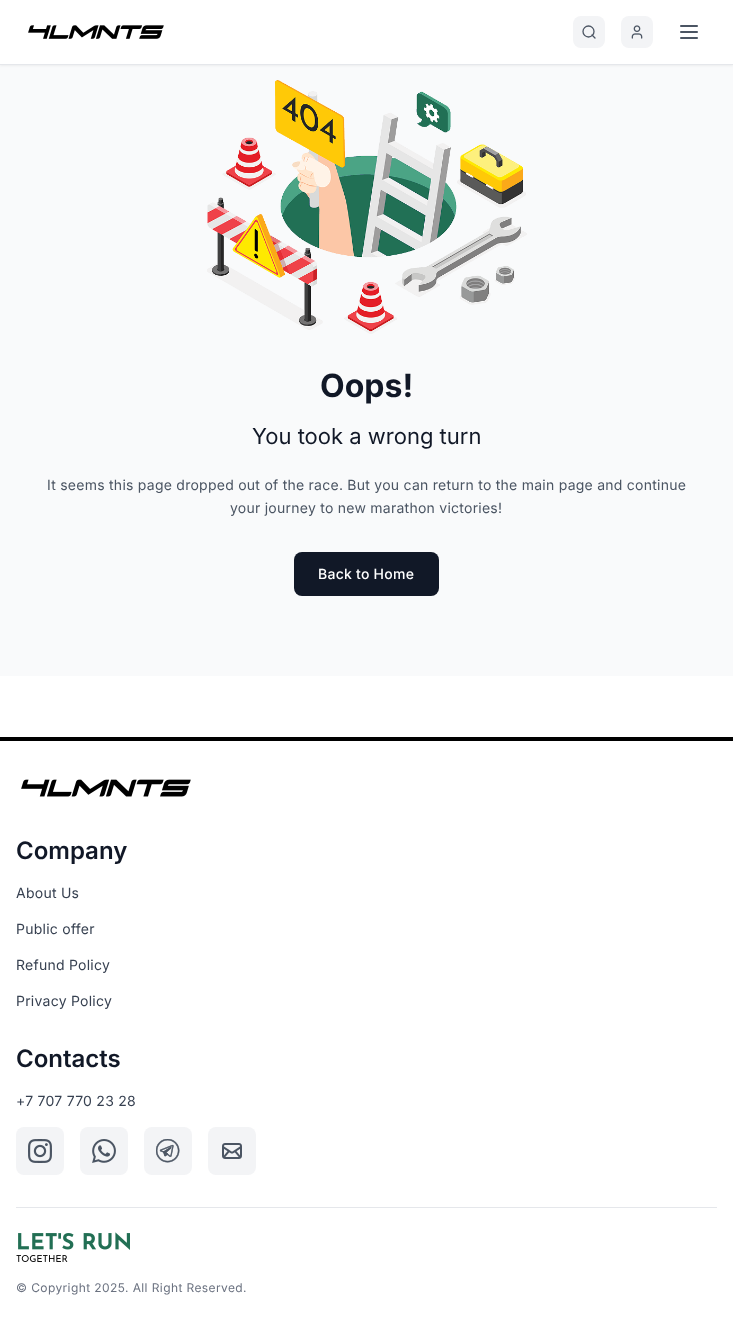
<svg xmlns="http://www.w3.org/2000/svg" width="733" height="1328">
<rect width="100%" height="100%" fill="#fff"/>
<rect y="65" width="733" height="611" fill="#f9fafb"/>
<rect y="1" width="733" height="65" fill="#0000000d" filter="blur(1px)"/>
<rect width="733" height="64" fill="#fff"/>
<rect y="64" width="733" height="1" fill="#e5e7eb"/>
<image x="28" y="25" width="136" height="14" href="media/1.png"/>
<rect x="573" y="16" width="32" height="32" rx="8" fill="#f3f4f6"/>
<circle cx="588.5" cy="31.5" r="5.5" fill="none" stroke="#4b5563" stroke-width="1.3"/>
<path d="M595 38l-3-3" fill="none" stroke="#4b5563" stroke-width="1.3" stroke-linecap="round" stroke-linejoin="round"/>
<rect x="621" y="16" width="32" height="32" rx="8" fill="#f3f4f6"/>
<image x="631" y="25" width="12" height="14" href="media/2.png"/>
<image x="680" y="25" width="18" height="14" href="media/3.png"/>
<image x="207" y="80" width="320" height="254" href="media/4.png"/>
<text x="320" y="397" style="font-family:Inter;font-size:32px;font-weight:bold;fill:#111827">Oops!</text>
<text x="252" y="444" style="font-family:Inter;font-size:22px;fill:#111827">You took a wrong turn</text>
<text x="47" y="490" style="font-family:Inter;font-size:14px;letter-spacing:0.25px;fill:#4b5563">It seems this page dropped out of the race. But you can return to the main page and continue</text>
<text x="230" y="513" style="font-family:Inter;font-size:14px;letter-spacing:0.25px;fill:#4b5563">your journey to new marathon victories!</text>
<rect x="294" y="552" width="145" height="44" rx="8" fill="#111827"/>
<text x="318" y="579" style="font-family:Inter;font-size:14px;font-weight:500;letter-spacing:0.25px;fill:#fff">Back to Home</text>
<rect y="737" width="733" height="4" fill="#000"/>
<image x="21" y="779" width="170" height="18" href="media/5.png"/>
<text x="16" y="859" style="font-family:Inter;font-size:24px;font-weight:600;fill:#111827">Company</text>
<text x="16" y="898" style="font-family:Inter;font-size:14px;letter-spacing:0.25px;fill:#374151">About Us</text>
<text x="16" y="934" style="font-family:Inter;font-size:14px;letter-spacing:0.25px;fill:#374151">Public offer</text>
<text x="16" y="970" style="font-family:Inter;font-size:14px;letter-spacing:0.25px;fill:#374151">Refund Policy</text>
<text x="16" y="1006" style="font-family:Inter;font-size:14px;letter-spacing:0.25px;fill:#374151">Privacy Policy</text>
<text x="16" y="1067" style="font-family:Inter;font-size:24px;font-weight:600;fill:#111827">Contacts</text>
<text x="16" y="1106" style="font-family:Inter;font-size:14px;letter-spacing:0.25px;fill:#374151">+7 707 770 23 28</text>
<rect x="16" y="1127" width="48" height="48" rx="8" fill="#f3f4f6"/>
<image x="28" y="1139" width="24" height="24" href="media/6.png"/>
<rect x="80" y="1127" width="48" height="48" rx="8" fill="#f3f4f6"/>
<image x="92" y="1139" width="24" height="24" href="media/7.png"/>
<rect x="144" y="1127" width="48" height="48" rx="8" fill="#f3f4f6"/>
<image x="156" y="1139" width="24" height="24" href="media/8.png"/>
<rect x="208" y="1127" width="48" height="48" rx="8" fill="#f3f4f6"/>
<image x="222" y="1143" width="20" height="16" href="media/9.png"/>
<rect x="16" y="1207" width="701" height="1" fill="#e5e7eb"/>
<image x="16" y="1232" width="114" height="30" href="media/10.png"/>
<text x="16" y="1292" style="font-family:Inter;font-size:12px;letter-spacing:0.4px;fill:#6b7280">© Copyright 2025</text>
<text x="125" y="1292" style="font-family:Inter;font-size:12px;letter-spacing:0.4px;fill:#6b7280">. All Right Reserved.</text>
</svg>
